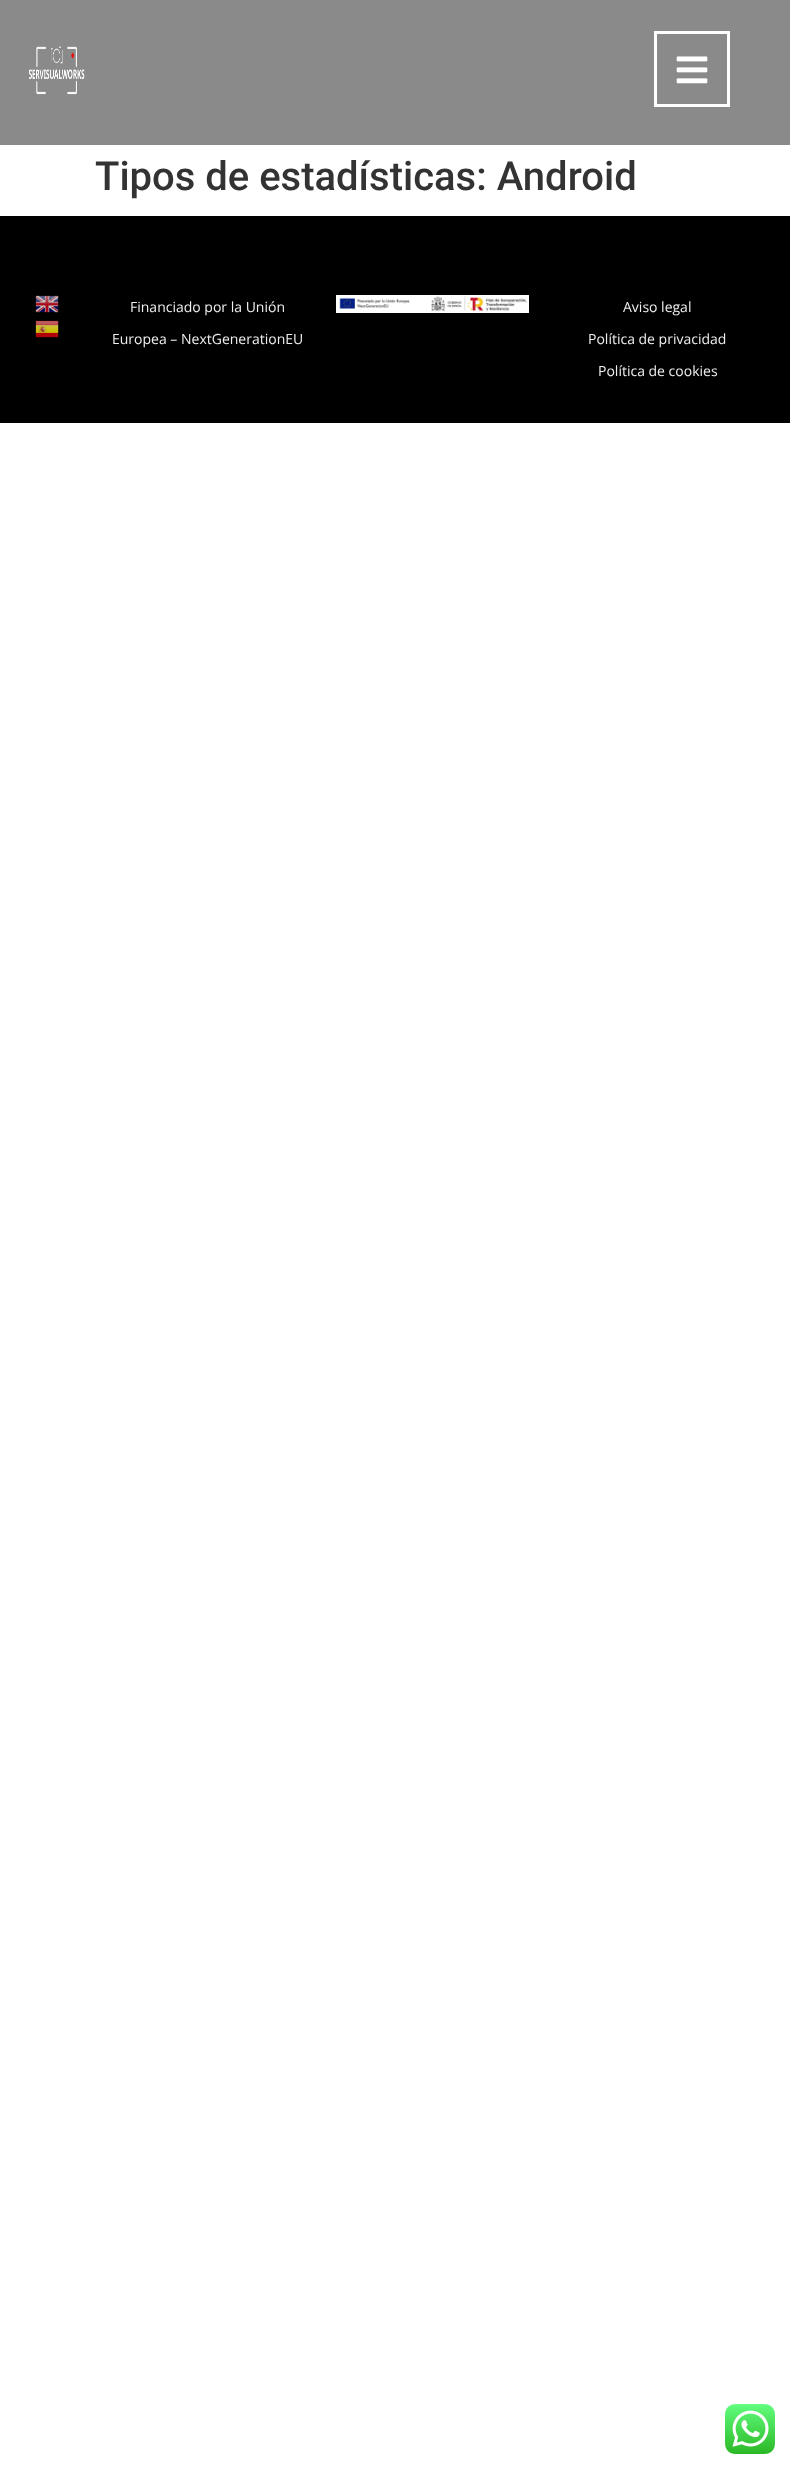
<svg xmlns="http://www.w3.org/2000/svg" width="790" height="2469">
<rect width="100%" height="100%" fill="#fff"/>
<rect width="790" height="145" fill="#8a8a8a"/>
<image x="29" y="46" width="56" height="49" href="media/1.png"/>
<rect x="655.5" y="32.5" width="73" height="73" fill="none" stroke="#fff" stroke-width="3"/>
<image x="676" y="56" width="32" height="28" href="media/2.png"/>
<text x="95" y="190" style="font-family:Roboto;font-size:40px;font-weight:500;fill:#333">Tipos de estadísticas: Android</text>
<rect y="216" width="790" height="207" fill="#000"/>
<image x="35" y="295" width="24" height="18" href="media/3.png"/>
<image x="35" y="320" width="24" height="18" href="media/4.png"/>
<text x="130" y="312" style="font-family:Open Sans;font-size:14px;fill:#eee">Financiado por la Unión</text>
<text x="112" y="344" style="font-family:Open Sans;font-size:14px;fill:#eee">Europea – NextGenerationEU</text>
<image x="336" y="295" width="193" height="18" href="media/5.png"/>
<text x="623" y="312" style="font-family:Open Sans;font-size:14px;fill:#eee">Aviso legal</text>
<text x="588" y="344" style="font-family:Open Sans;font-size:14px;fill:#eee">Política de privacidad</text>
<text x="598" y="376" style="font-family:Open Sans;font-size:14px;fill:#eee">Política de cookies</text>
<image x="725" y="2404" width="50" height="50" href="media/6.png"/>
</svg>
